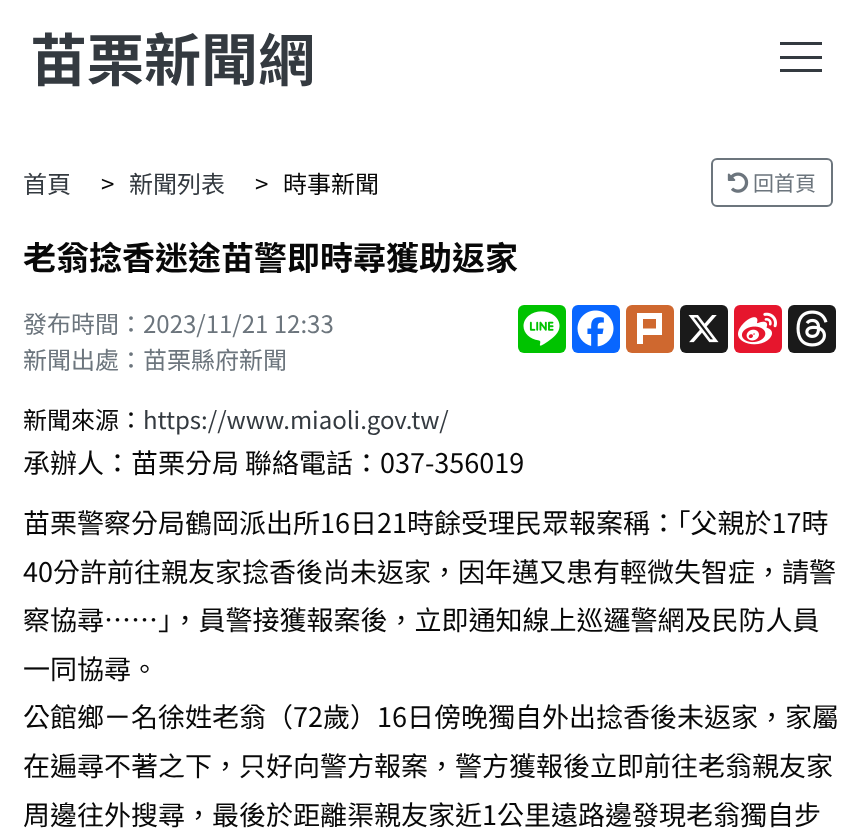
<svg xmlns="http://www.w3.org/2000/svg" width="860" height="834">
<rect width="100%" height="100%" fill="#fff"/>
<text x="30" y="81" style="font-family:Noto Sans TC;font-size:57px;font-weight:bold;fill:#343a40">苗栗新聞網</text>
<rect x="780" y="56" width="42" height="3" fill="#343a40"/>
<rect x="780" y="42" width="42" height="3" fill="#343a40"/>
<rect x="780" y="69" width="42" height="3" fill="#343a40"/>
<text x="23" y="193" style="font-family:Noto Sans TC;font-size:24px;fill:#343a40">首頁</text>
<text x="101" y="193" style="font-family:Noto Sans TC;font-size:24px;fill:#080808">&gt;</text>
<text x="129" y="193" style="font-family:Noto Sans TC;font-size:24px;fill:#343a40">新聞列表</text>
<text x="255" y="193" style="font-family:Noto Sans TC;font-size:24px;fill:#080808">&gt;</text>
<text x="283" y="193" style="font-family:Noto Sans TC;font-size:24px;fill:#080808">時事新聞</text>
<rect x="712" y="159" width="120" height="47" rx="5" fill="none" stroke="#6c757d" stroke-width="2"/>
<image x="727" y="172" width="22" height="21" href="media/1.png"/>
<text x="753" y="191" style="font-family:Noto Sans TC;font-size:21px;fill:#6c757d">回首頁</text>
<text x="23" y="270" style="font-family:Noto Sans TC;font-size:33px;font-weight:bold;fill:#080808">老翁捻香迷途苗警即時尋獲助返家</text>
<text x="23" y="333" style="font-family:Noto Sans TC;font-size:24px;fill:#6c757d">發布時間：2023/11/21 12:33</text>
<text x="23" y="369" style="font-family:Noto Sans TC;font-size:24px;fill:#6c757d">新聞出處：苗栗縣府新聞</text>
<rect x="518" y="305" width="48" height="48" rx="6" fill="#00c300"/>
<image x="523" y="311" width="37" height="35" href="media/2.png"/>
<rect x="572" y="305" width="48" height="48" rx="6" fill="#0866ff"/>
<image x="577" y="310" width="37" height="37" href="media/3.png"/>
<rect x="626" y="305" width="48" height="48" rx="6" fill="#cf682f"/>
<path d="M656 328.5h-13v-9.5h13zm6 6.5v-22h-25v31h6v-9z" fill="#fff"/>
<rect x="680" y="305" width="48" height="48" rx="6" fill="#1a1a1a"/>
<image x="688" y="315" width="31" height="28" href="media/4.png"/>
<rect x="734" y="305" width="48" height="48" rx="6" fill="#e6162d"/>
<image x="738" y="312" width="39" height="33" href="media/5.png"/>
<rect x="788" y="305" width="48" height="48" rx="6" fill="#1a1a1a"/>
<image x="796" y="310" width="32" height="37" href="media/6.png"/>
<text x="23" y="429" style="font-family:Noto Sans TC;font-size:24px;fill:#080808">新聞來源：</text>
<text x="143" y="429" style="font-family:Noto Sans TC;font-size:24px;fill:#343a40">https://www.miaoli.gov.tw/</text>
<text x="23" y="473" style="font-family:Noto Sans TC;font-size:27px;fill:#080808">承辦人：苗栗分局 聯絡電話：037-356019</text>
<text x="23" y="533" style="font-family:Noto Sans TC;font-size:27px;fill:#080808">苗栗警察分局鶴岡派出所16日21時餘受理民眾報案稱：「父親於17時</text>
<text x="23" y="582" style="font-family:Noto Sans TC;font-size:27px;fill:#080808">40分許前往親友家捻香後尚未返家，因年邁又患有輕微失智症，請警</text>
<text x="23" y="630" style="font-family:Noto Sans TC;font-size:27px;fill:#080808">察協尋⋯⋯」，員警接獲報案後，立即通知線上巡邏警網及民防人員</text>
<text x="23" y="679" style="font-family:Noto Sans TC;font-size:27px;fill:#080808">一同協尋。</text>
<text x="23" y="727" style="font-family:Noto Sans TC;font-size:27px;fill:#080808">公館鄉ㄧ名徐姓老翁（72歲）16日傍晚獨自外出捻香後未返家，家屬</text>
<text x="23" y="776" style="font-family:Noto Sans TC;font-size:27px;fill:#080808">在遍尋不著之下，只好向警方報案，警方獲報後立即前往老翁親友家</text>
<text x="23" y="825" style="font-family:Noto Sans TC;font-size:27px;fill:#080808">周邊往外搜尋，最後於距離渠親友家近1公里遠路邊發現老翁獨自步</text>
</svg>
